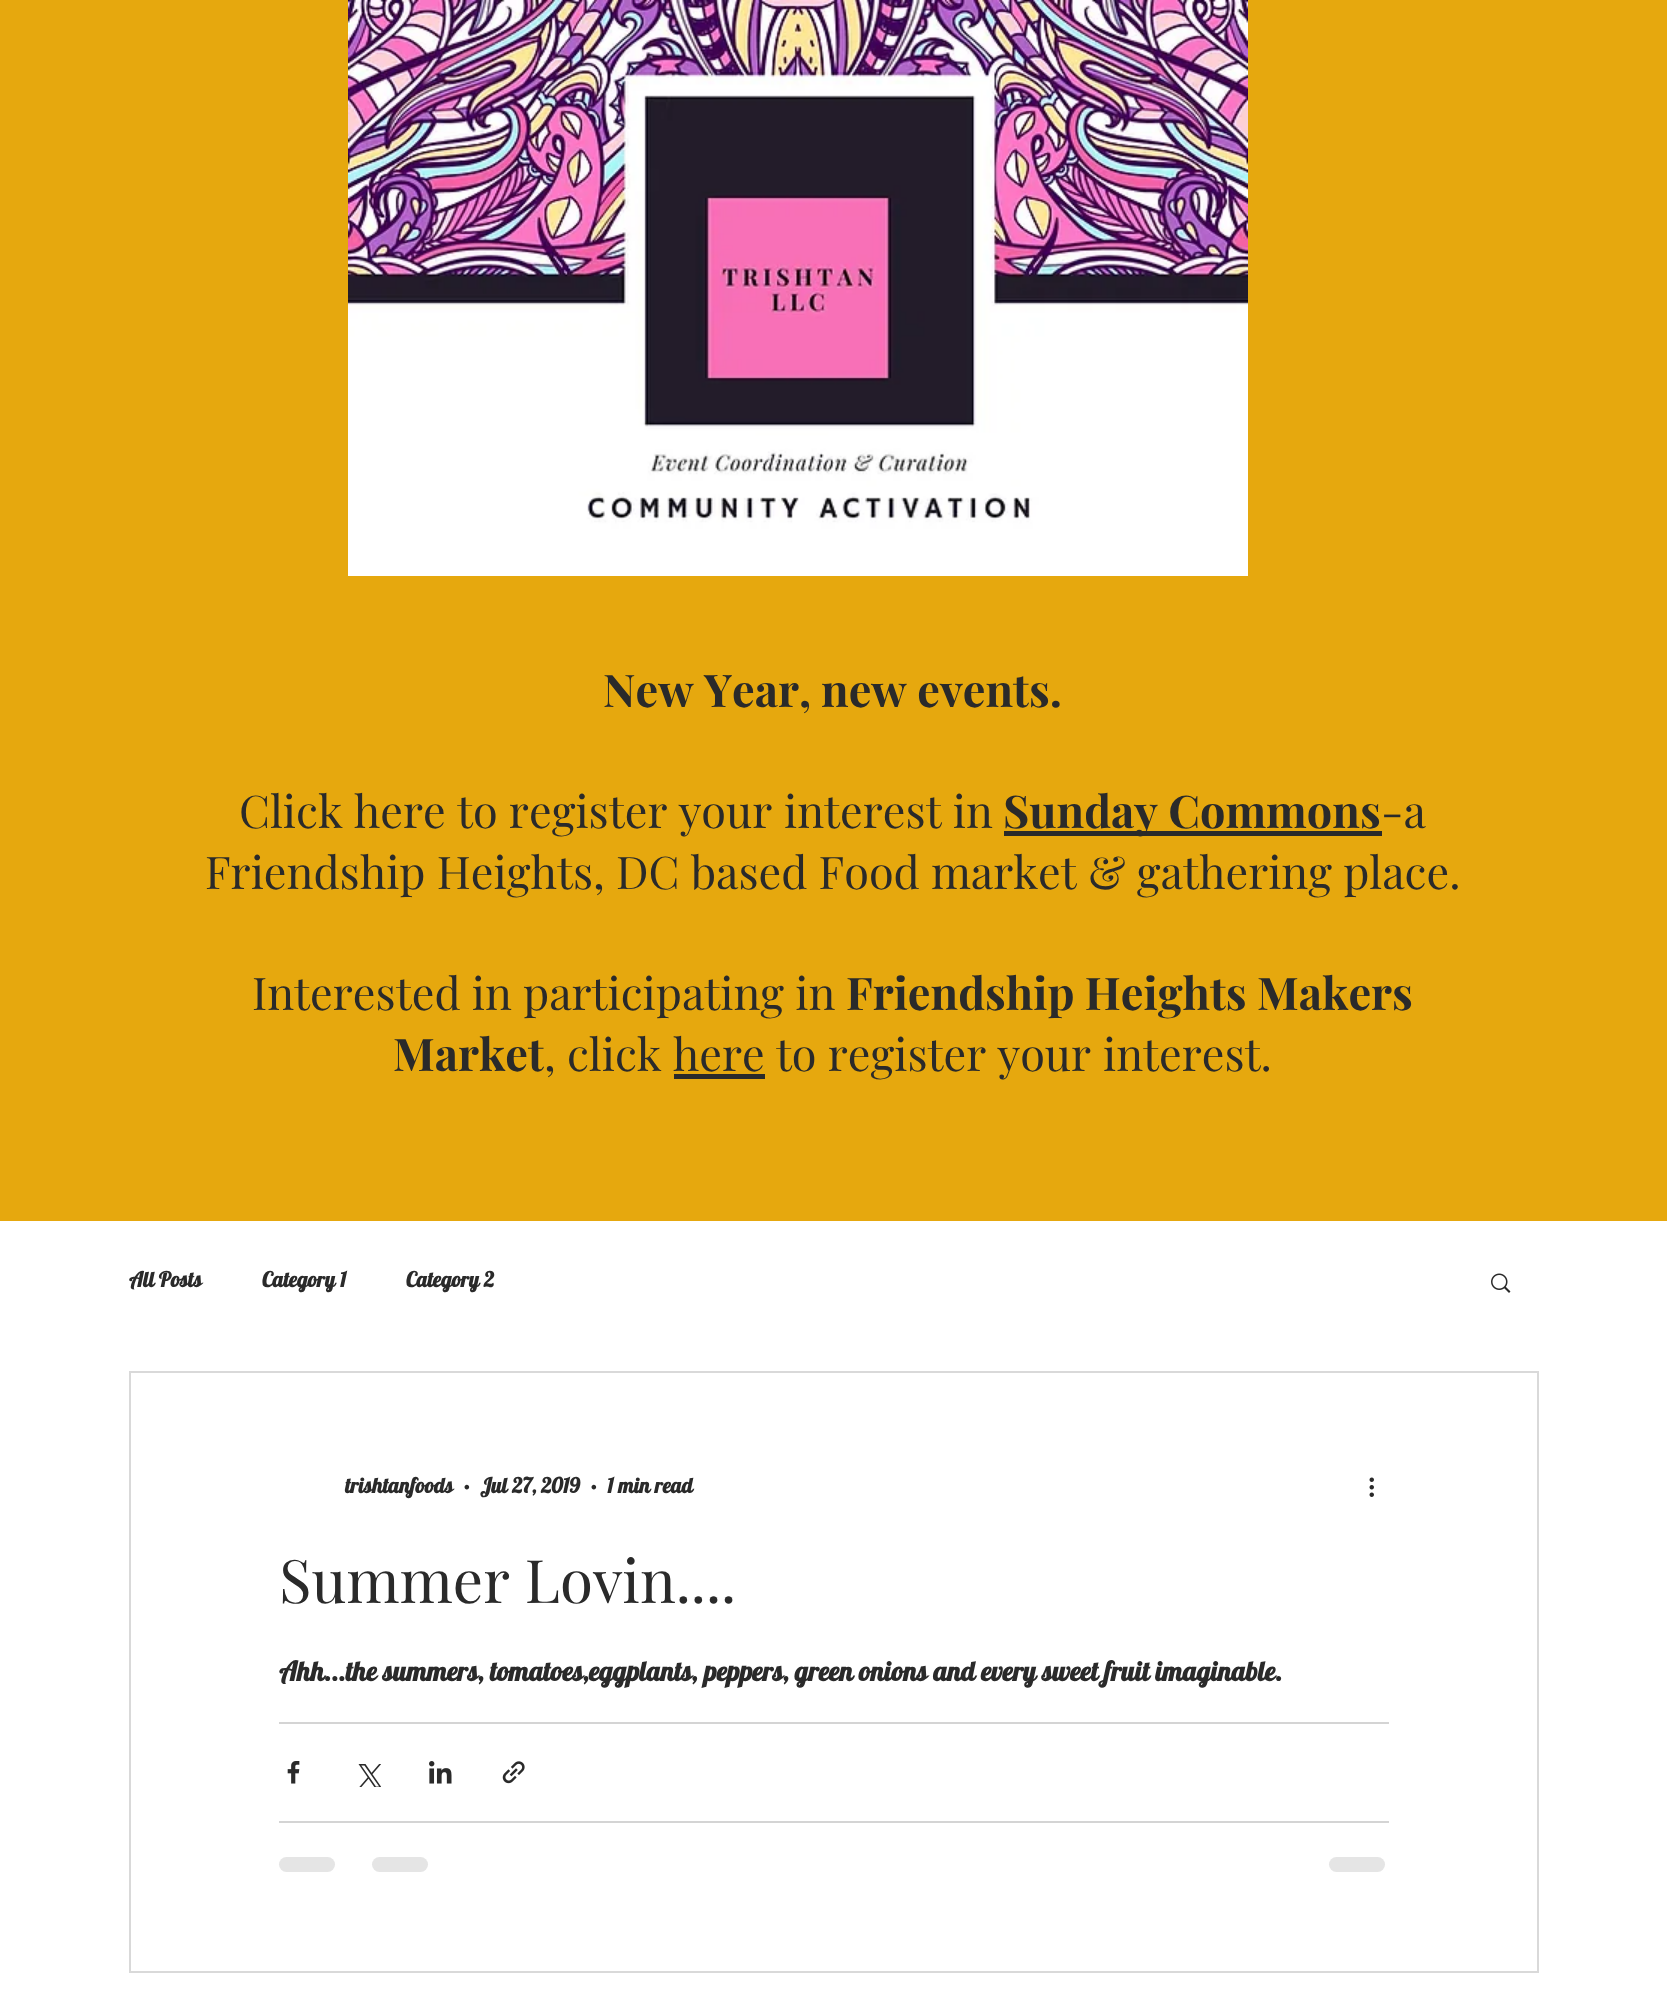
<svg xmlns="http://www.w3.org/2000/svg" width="1667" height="2004">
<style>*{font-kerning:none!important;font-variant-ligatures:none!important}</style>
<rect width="100%" height="100%" fill="#fff"/>
<rect width="1667" height="1221" fill="#e6a80e"/>
<image x="348" y="0" width="900" height="576" href="media/1.png"/>
<text x="603" y="707" style="font-family:Playfair Display;font-size:45px;font-weight:bold;fill:#2a2a2a">New Year,</text>
<text x="821" y="707" style="font-family:Playfair Display;font-size:45px;font-weight:bold;fill:#2a2a2a">new events.</text>
<text x="239" y="828" style="font-family:Playfair Display;font-size:45px;fill:#2a2a2a">Click here to register your</text>
<text x="784" y="828" style="font-family:Playfair Display;font-size:45px;fill:#2a2a2a">interest in</text>
<rect x="1004" y="831" width="378" height="5" fill="#2a2a2a"/>
<text x="1003" y="828" style="font-family:Playfair Display;font-size:45px;font-weight:bold;fill:#2a2a2a">Sunday Commons</text>
<text x="1381" y="828" style="font-family:Playfair Display;font-size:45px;fill:#2a2a2a">-a</text>
<text x="205" y="889" style="font-family:Playfair Display;font-size:45px;fill:#2a2a2a">Friendship Heights, DC based Food market &amp; gathering place.</text>
<text x="252" y="1010" style="font-family:Playfair Display;font-size:45px;fill:#2a2a2a">Interested in participating in</text>
<text x="846" y="1010" style="font-family:Playfair Display;font-size:45px;font-weight:bold;fill:#2a2a2a">Friendship Heights Makers</text>
<text x="393" y="1071" style="font-family:Playfair Display;font-size:45px;font-weight:bold;fill:#2a2a2a">Market</text>
<text x="544" y="1071" style="font-family:Playfair Display;font-size:45px;fill:#2a2a2a">, click here to register your</text>
<text x="1103" y="1071" style="font-family:Playfair Display;font-size:45px;fill:#2a2a2a">interest.</text>
<rect x="674" y="1074" width="91" height="5" fill="#2a2a2a"/>
<text x="129" y="1287" style="font-family:Lobster;font-size:21px;font-weight:bold;fill:#2a2a2a">All Posts</text>
<text x="262" y="1287" style="font-family:Lobster;font-size:21px;font-weight:bold;fill:#2a2a2a">Category 1</text>
<text x="406" y="1287" style="font-family:Lobster;font-size:21px;font-weight:bold;fill:#2a2a2a">Category 2</text>
<image x="1491" y="1273" width="20" height="20" href="media/2.png"/>
<rect x="130" y="1372" width="1408" height="600" fill="none" stroke="#d9d9d9" stroke-width="2"/>
<text x="345" y="1493" style="font-family:Lobster;font-size:21px;font-weight:bold;fill:#2a2a2a">trishtanfoods</text>
<text x="462" y="1493" style="font-family:Lobster;font-size:21px;font-weight:bold;fill:#2a2a2a">·</text>
<text x="480" y="1493" style="font-family:Lobster;font-size:21px;font-weight:bold;fill:#2a2a2a">Jul 27,</text>
<text x="541" y="1493" style="font-family:Lobster;font-size:21px;font-weight:bold;fill:#2a2a2a">2019</text>
<text x="589" y="1493" style="font-family:Lobster;font-size:21px;font-weight:bold;fill:#2a2a2a">·</text>
<text x="607" y="1493" style="font-family:Lobster;font-size:21px;font-weight:bold;fill:#2a2a2a">1 min read</text>
<image x="1369" y="1477" width="5" height="20" href="media/3.png"/>
<text x="279" y="1603" style="font-family:Playfair Display;font-size:60px;fill:#2a2a2a">Summer Lovin....</text>
<text x="279" y="1681" style="font-family:Lobster;font-size:27px;font-weight:bold;fill:#2a2a2a">Ahh...the summers, tomatoes,eggplants,</text>
<text x="704" y="1681" style="font-family:Lobster;font-size:27px;font-weight:bold;fill:#2a2a2a">peppers, green onions and</text>
<text x="981" y="1681" style="font-family:Lobster;font-size:27px;font-weight:bold;fill:#2a2a2a">every sweet fruit imaginable.</text>
<rect x="279" y="1722" width="1110" height="2" fill="#d4d4d4"/>
<image x="287" y="1761" width="13" height="23" href="media/4.png"/>
<image x="358" y="1764" width="23" height="23" href="media/5.png"/>
<image x="429" y="1761" width="23" height="23" href="media/6.png"/>
<image x="502" y="1761" width="23" height="23" href="media/7.png"/>
<rect x="279" y="1821" width="1110" height="2" fill="#d4d4d4"/>
<rect x="279" y="1857" width="56" height="15" rx="7.5" fill="#e5e5e5"/>
<rect x="372" y="1857" width="56" height="15" rx="7.5" fill="#e5e5e5"/>
<rect x="1329" y="1857" width="56" height="15" rx="7.5" fill="#e5e5e5"/>
</svg>
